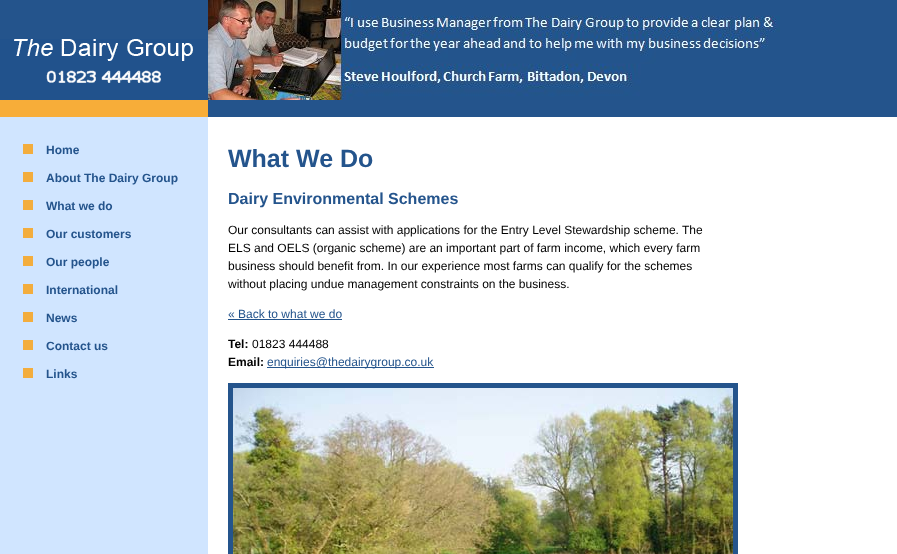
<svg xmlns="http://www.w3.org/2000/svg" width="897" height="554">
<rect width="100%" height="100%" fill="#fff"/>
<rect y="117" width="208" height="437" fill="#d0e5ff"/>
<rect width="897" height="117" fill="#24548c"/>
<image x="0" y="39" width="208" height="78" href="media/1.png"/>
<image x="208" y="0" width="572" height="100" href="media/2.png"/>
<rect x="23" y="144" width="10" height="10" fill="#f3ad3d"/>
<text x="46" y="154" style="font-family:Liberation Sans;font-size:12px;font-weight:bold;fill:#24548c">Home</text>
<rect x="23" y="172" width="10" height="10" fill="#f3ad3d"/>
<text x="46" y="182" style="font-family:Liberation Sans;font-size:12px;font-weight:bold;fill:#24548c">About The Dairy Group</text>
<rect x="23" y="200" width="10" height="10" fill="#f3ad3d"/>
<text x="46" y="210" style="font-family:Liberation Sans;font-size:12px;font-weight:bold;fill:#24548c">What we do</text>
<rect x="23" y="228" width="10" height="10" fill="#f3ad3d"/>
<text x="46" y="238" style="font-family:Liberation Sans;font-size:12px;font-weight:bold;fill:#24548c">Our customers</text>
<rect x="23" y="256" width="10" height="10" fill="#f3ad3d"/>
<text x="46" y="266" style="font-family:Liberation Sans;font-size:12px;font-weight:bold;fill:#24548c">Our people</text>
<rect x="23" y="284" width="10" height="10" fill="#f3ad3d"/>
<text x="46" y="294" style="font-family:Liberation Sans;font-size:12px;font-weight:bold;fill:#24548c">International</text>
<rect x="23" y="312" width="10" height="10" fill="#f3ad3d"/>
<text x="46" y="322" style="font-family:Liberation Sans;font-size:12px;font-weight:bold;fill:#24548c">News</text>
<rect x="23" y="340" width="10" height="10" fill="#f3ad3d"/>
<text x="46" y="350" style="font-family:Liberation Sans;font-size:12px;font-weight:bold;fill:#24548c">Contact us</text>
<rect x="23" y="368" width="10" height="10" fill="#f3ad3d"/>
<text x="46" y="378" style="font-family:Liberation Sans;font-size:12px;font-weight:bold;fill:#24548c">Links</text>
<text x="228" y="167" style="font-family:Liberation Sans;font-size:25px;font-weight:bold;fill:#24548c">What We Do</text>
<text x="228" y="204" style="font-family:Liberation Sans;font-size:16px;font-weight:bold;fill:#24548c">Dairy Environmental Schemes</text>
<text x="228" y="234" style="font-family:Liberation Sans;font-size:12px;fill:#000">Our consultants can assist with applications for the Entry Level Stewardship scheme. The</text>
<text x="228" y="252" style="font-family:Liberation Sans;font-size:12px;fill:#000">ELS and OELS (organic scheme) are an important part of farm income, which every farm</text>
<text x="228" y="270" style="font-family:Liberation Sans;font-size:12px;fill:#000">business should benefit from. In our experience most farms can qualify for the schemes</text>
<text x="228" y="288" style="font-family:Liberation Sans;font-size:12px;fill:#000">without placing undue management constraints on the business.</text>
<text x="228" y="318" style="font-family:Liberation Sans;font-size:12px;fill:#24548c">« Back to what we do</text>
<rect x="228" y="319" width="114" height="1" fill="#24548c"/>
<text x="228" y="348" style="font-family:Liberation Sans;font-size:12px;font-weight:bold;fill:#000">Tel:</text>
<text x="252" y="348" style="font-family:Liberation Sans;font-size:12px;fill:#000">01823 444488</text>
<text x="228" y="366" style="font-family:Liberation Sans;font-size:12px;font-weight:bold;fill:#000">Email:</text>
<rect x="267" y="367" width="167" height="1" fill="#24548c"/>
<text x="267" y="366" style="font-family:Liberation Sans;font-size:12px;fill:#24548c">enquiries@thedairygroup.co.uk</text>
<rect x="230.5" y="385.5" width="505" height="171" fill="none" stroke="#24548c" stroke-width="5"/>
<image x="233" y="388" width="500" height="166" href="media/3.png"/>
</svg>
